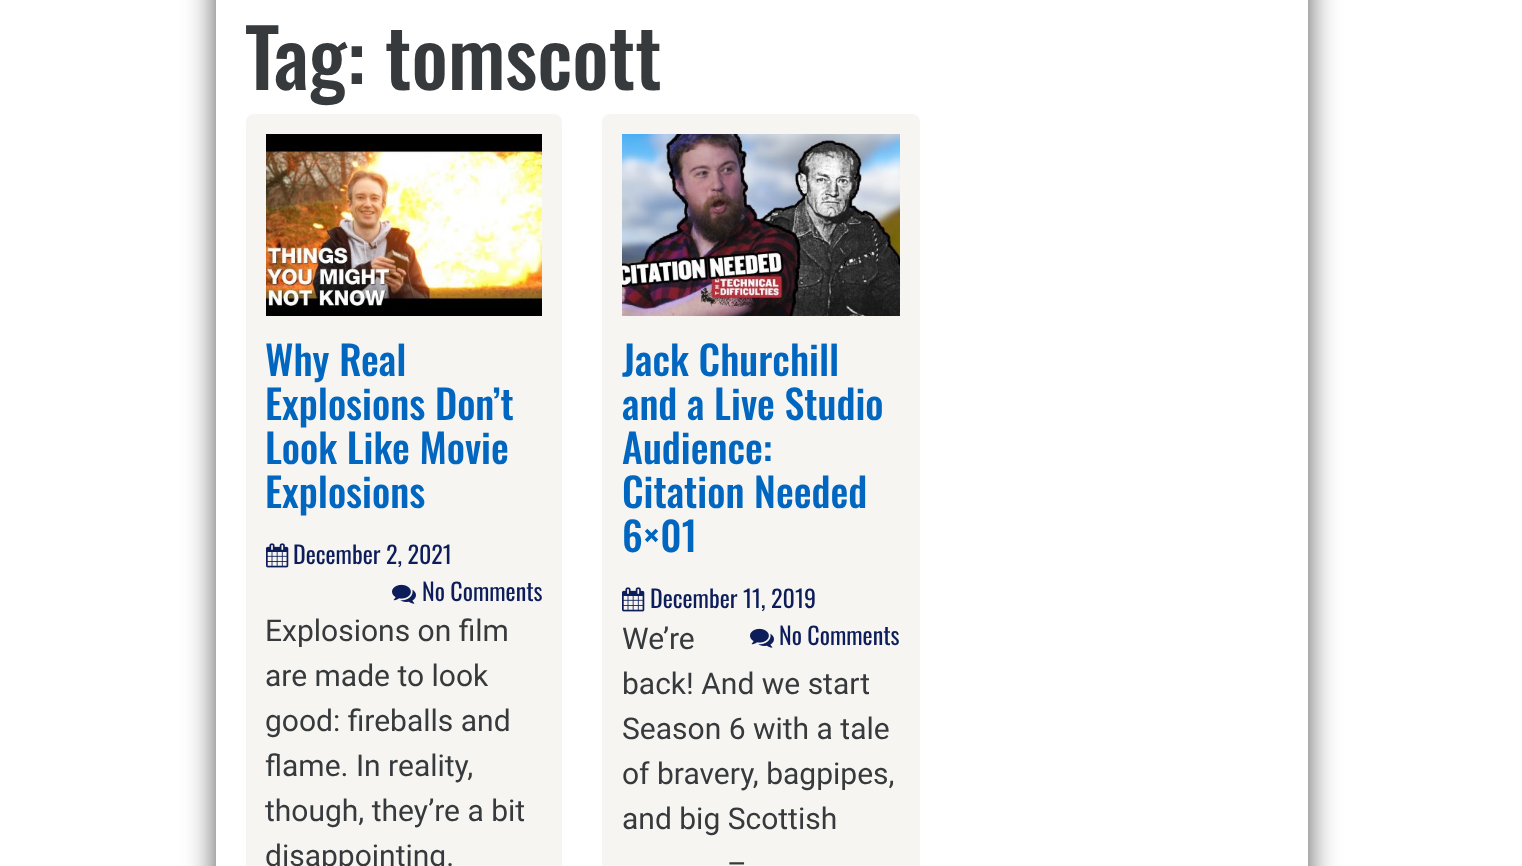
<svg xmlns="http://www.w3.org/2000/svg" width="1522" height="866">
<defs>
<clipPath id="clip1"><path d="M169 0h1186v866h-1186zm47-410h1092v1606h-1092z" clip-rule="evenodd"/></clipPath>
</defs>
<rect width="100%" height="100%" fill="#fff"/>
<g clip-path="url(#clip1)">
<rect x="218" y="-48" width="1088" height="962" fill="#000000bf" filter="blur(16px)"/>
</g>
<text x="245" y="90" style="font-family:Oswald;font-size:80px;font-weight:500;fill:#373a3c">Tag: tomscott</text>
<rect x="246" y="114" width="316" height="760" rx="8" fill="#f6f5f2"/>
<image x="266" y="134" width="276" height="182" href="media/1.png"/>
<text x="265" y="376" style="font-family:Oswald;font-size:40px;font-weight:500;fill:#0066bf">Why Real</text>
<text x="265" y="420" style="font-family:Oswald;font-size:40px;font-weight:500;fill:#0066bf">Explosions Don’t</text>
<text x="265" y="464" style="font-family:Oswald;font-size:40px;font-weight:500;fill:#0066bf">Look Like Movie</text>
<text x="265" y="508" style="font-family:Oswald;font-size:40px;font-weight:500;fill:#0066bf">Explosions</text>
<image x="266" y="543" width="23" height="25" href="media/2.png"/>
<text x="293" y="564" style="font-family:Oswald;font-size:24px;fill:#0d1d59">December 2, 2021</text>
<image x="392" y="584" width="24" height="20" href="media/3.png"/>
<text x="422" y="601" style="font-family:Oswald;font-size:24px;fill:#0d1d59">No Comments</text>
<text x="265" y="641" style="font-family:Roboto;font-size:30px;fill:#373a3c">Explosions on film</text>
<text x="265" y="686" style="font-family:Roboto;font-size:30px;fill:#373a3c">are made to look</text>
<text x="265" y="731" style="font-family:Roboto;font-size:30px;fill:#373a3c">good: fireballs and</text>
<text x="265" y="776" style="font-family:Roboto;font-size:30px;fill:#373a3c">flame. In reality,</text>
<text x="265" y="821" style="font-family:Roboto;font-size:30px;fill:#373a3c">though, they’re a bit</text>
<text x="265" y="866" style="font-family:Roboto;font-size:30px;fill:#373a3c">disappointing.</text>
<rect x="602" y="114" width="318" height="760" rx="8" fill="#f6f5f2"/>
<image x="622" y="134" width="278" height="182" href="media/4.png"/>
<text x="622" y="376" style="font-family:Oswald;font-size:40px;font-weight:500;fill:#0066bf">Jack Churchill</text>
<text x="622" y="420" style="font-family:Oswald;font-size:40px;font-weight:500;fill:#0066bf">and a Live Studio</text>
<text x="622" y="464" style="font-family:Oswald;font-size:40px;font-weight:500;fill:#0066bf">Audience:</text>
<text x="622" y="508" style="font-family:Oswald;font-size:40px;font-weight:500;fill:#0066bf">Citation Needed</text>
<text x="622" y="552" style="font-family:Oswald;font-size:40px;font-weight:500;fill:#0066bf">6×01</text>
<image x="622" y="587" width="23" height="25" href="media/2.png"/>
<text x="650" y="608" style="font-family:Oswald;font-size:24px;fill:#0d1d59">December 11, 2019</text>
<image x="750" y="628" width="24" height="20" href="media/3.png"/>
<text x="779" y="645" style="font-family:Oswald;font-size:24px;fill:#0d1d59">No Comments</text>
<text x="622" y="649" style="font-family:Roboto;font-size:30px;fill:#373a3c">We’re</text>
<text x="622" y="694" style="font-family:Roboto;font-size:30px;fill:#373a3c">back! And we start</text>
<text x="622" y="739" style="font-family:Roboto;font-size:30px;fill:#373a3c">Season 6 with a tale</text>
<text x="622" y="784" style="font-family:Roboto;font-size:30px;fill:#373a3c">of bravery, bagpipes,</text>
<text x="622" y="829" style="font-family:Roboto;font-size:30px;fill:#373a3c">and big Scottish</text>
<text x="727" y="874" style="font-family:Roboto;font-size:30px;fill:#373a3c">–</text>
</svg>
